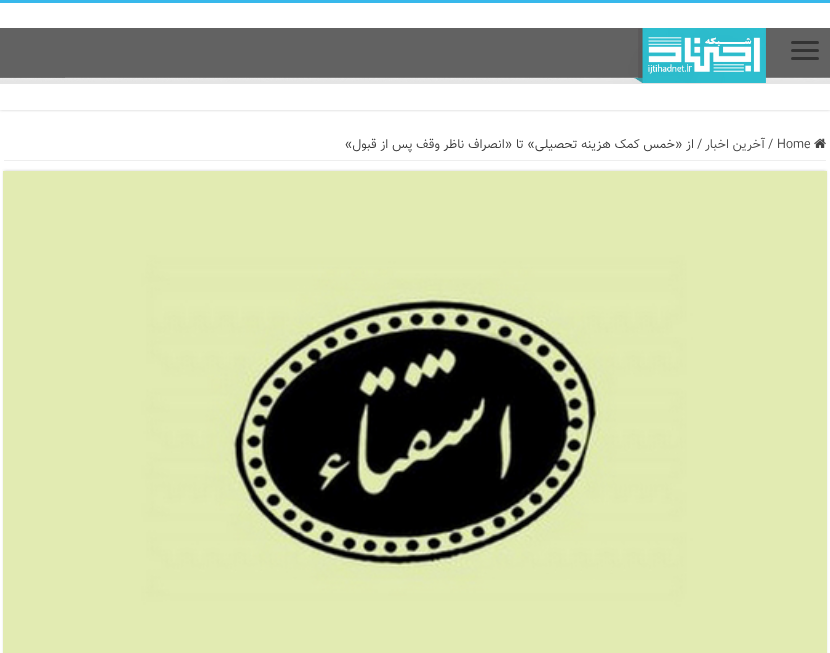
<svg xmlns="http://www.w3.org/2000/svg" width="830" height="653">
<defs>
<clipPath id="clip1"><rect x="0" y="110" width="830" height="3"/></clipPath>
</defs>
<rect width="100%" height="100%" fill="#fff"/>
<g clip-path="url(#clip1)">
<rect width="830" height="110" fill="#cacaca" filter="blur(1.5px)"/>
</g>
<rect width="830" height="3" fill="#37b8eb"/>
<image x="0" y="28" width="830" height="56" href="media/1.png"/>
<rect x="791" y="41" width="28" height="3" rx="1.5" fill="#333"/>
<rect x="791" y="49" width="28" height="3" rx="1.5" fill="#333"/>
<rect x="791" y="57" width="28" height="3" rx="1.5" fill="#333"/>
<rect x="4" y="160" width="822" height="1" fill="#eee"/>
<image x="814" y="138" width="12" height="10" href="media/2.png"/>
<text x="777" y="148" style="font-family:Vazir;font-size:13px;font-weight:300;fill:#444">Home</text>
<text x="768" y="148" style="font-family:Vazir;font-size:13px;font-weight:300;fill:#333">/</text>
<text x="765" y="148" style="font-family:Vazir;font-size:13px;font-weight:300;direction:rtl;fill:#444">آخرین اخبار</text>
<text x="697" y="148" style="font-family:Vazir;font-size:13px;font-weight:300;fill:#333">/</text>
<text x="694" y="148" style="font-family:Vazir;font-size:13px;font-weight:300;direction:rtl;fill:#333">از «خمس کمک هزینه تحصیلی» تا «انصراف ناظر وقف پس از قبول»</text>
<rect x="4" y="171" width="822" height="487" fill="#cacaca" filter="blur(1.5px)"/>
<image x="3" y="171" width="824" height="482" href="media/3.png"/>
</svg>
